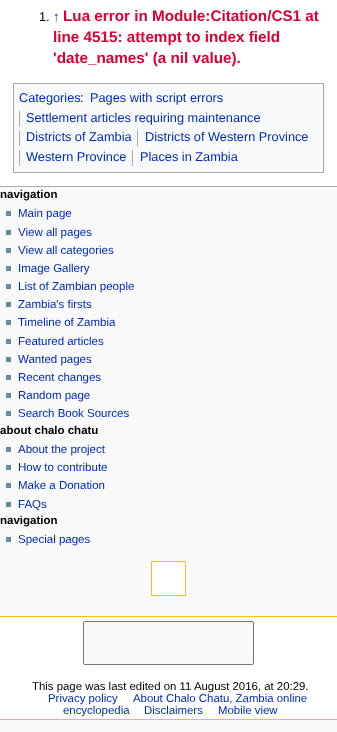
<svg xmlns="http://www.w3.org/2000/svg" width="337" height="732">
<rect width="100%" height="100%" fill="#f9f9f9"/>
<rect width="337" height="186" fill="#fff"/>
<rect y="186" width="337" height="1" fill="#aaa"/>
<text x="39" y="21" style="font-family:Liberation Sans;font-size:12.75px;fill:#000">1.</text>
<text x="53" y="21" style="font-family:Liberation Sans;font-size:12.75px;fill:#002bb8">↑</text>
<text x="63" y="21" style="font-family:Liberation Sans;font-size:15.25px;font-weight:bold;fill:#d03">Lua error in Module:Citation/CS1 at</text>
<text x="53" y="42" style="font-family:Liberation Sans;font-size:15.25px;font-weight:bold;fill:#d03">line 4515: attempt to index field</text>
<text x="53" y="63" style="font-family:Liberation Sans;font-size:15.25px;font-weight:bold;fill:#d03">'date_names' (a nil value).</text>
<rect x="13.5" y="83.5" width="310" height="89" fill="#f8f9fa" stroke="#aaa"/>
<text x="19" y="102" style="font-family:Liberation Sans;font-size:12.75px;fill:#002bb8">Categories</text>
<text x="90" y="102" style="font-family:Liberation Sans;font-size:12.75px;fill:#002bb8">Pages with script errors</text>
<rect x="19" y="111" width="1" height="16" fill="#aaa"/>
<text x="26" y="122" style="font-family:Liberation Sans;font-size:12.75px;fill:#002bb8">Settlement articles requiring maintenance</text>
<rect x="19" y="130" width="1" height="16" fill="#aaa"/>
<text x="26" y="141" style="font-family:Liberation Sans;font-size:12.75px;fill:#002bb8">Districts of Zambia</text>
<rect x="137" y="130" width="1" height="16" fill="#aaa"/>
<text x="145" y="141" style="font-family:Liberation Sans;font-size:12.75px;fill:#002bb8">Districts of Western Province</text>
<rect x="19" y="150" width="1" height="16" fill="#aaa"/>
<text x="26" y="161" style="font-family:Liberation Sans;font-size:12.75px;fill:#002bb8">Western Province</text>
<rect x="132" y="150" width="1" height="16" fill="#aaa"/>
<text x="140" y="161" style="font-family:Liberation Sans;font-size:12.75px;fill:#002bb8">Places in Zambia</text>
<text x="80" y="102" style="font-family:Liberation Sans;font-size:12.75px;fill:#000">:</text>
<text x="0" y="198" style="font-family:Liberation Sans;font-size:11.5px;font-weight:bold;fill:#000">navigation</text>
<rect x="6" y="211" width="5" height="5" fill="#638c9c"/>
<text x="18" y="217" style="font-family:Liberation Sans;font-size:11.5px;fill:#002bb8">Main page</text>
<rect x="6" y="230" width="5" height="5" fill="#638c9c"/>
<text x="18" y="236" style="font-family:Liberation Sans;font-size:11.5px;fill:#002bb8">View all pages</text>
<rect x="6" y="248" width="5" height="5" fill="#638c9c"/>
<text x="18" y="254" style="font-family:Liberation Sans;font-size:11.5px;fill:#002bb8">View all categories</text>
<rect x="6" y="266" width="5" height="5" fill="#638c9c"/>
<text x="18" y="272" style="font-family:Liberation Sans;font-size:11.5px;fill:#002bb8">Image Gallery</text>
<rect x="6" y="284" width="5" height="5" fill="#638c9c"/>
<text x="18" y="290" style="font-family:Liberation Sans;font-size:11.5px;fill:#002bb8">List of Zambian people</text>
<rect x="6" y="302" width="5" height="5" fill="#638c9c"/>
<text x="18" y="308" style="font-family:Liberation Sans;font-size:11.5px;fill:#002bb8">Zambia's firsts</text>
<rect x="6" y="320" width="5" height="5" fill="#638c9c"/>
<text x="18" y="326" style="font-family:Liberation Sans;font-size:11.5px;fill:#002bb8">Timeline of Zambia</text>
<rect x="6" y="339" width="5" height="5" fill="#638c9c"/>
<text x="18" y="345" style="font-family:Liberation Sans;font-size:11.5px;fill:#002bb8">Featured articles</text>
<rect x="6" y="357" width="5" height="5" fill="#638c9c"/>
<text x="18" y="363" style="font-family:Liberation Sans;font-size:11.5px;fill:#002bb8">Wanted pages</text>
<rect x="6" y="375" width="5" height="5" fill="#638c9c"/>
<text x="18" y="381" style="font-family:Liberation Sans;font-size:11.5px;fill:#002bb8">Recent changes</text>
<rect x="6" y="393" width="5" height="5" fill="#638c9c"/>
<text x="18" y="399" style="font-family:Liberation Sans;font-size:11.5px;fill:#002bb8">Random page</text>
<rect x="6" y="411" width="5" height="5" fill="#638c9c"/>
<text x="18" y="417" style="font-family:Liberation Sans;font-size:11.5px;fill:#002bb8">Search Book Sources</text>
<text x="0" y="434" style="font-family:Liberation Sans;font-size:11.5px;font-weight:bold;fill:#000">about chalo chatu</text>
<rect x="6" y="447" width="5" height="5" fill="#638c9c"/>
<text x="18" y="453" style="font-family:Liberation Sans;font-size:11.5px;fill:#002bb8">About the project</text>
<rect x="6" y="465" width="5" height="5" fill="#638c9c"/>
<text x="18" y="471" style="font-family:Liberation Sans;font-size:11.5px;fill:#002bb8">How to contribute</text>
<rect x="6" y="483" width="5" height="5" fill="#638c9c"/>
<text x="18" y="489" style="font-family:Liberation Sans;font-size:11.5px;fill:#002bb8">Make a Donation</text>
<rect x="6" y="502" width="5" height="5" fill="#638c9c"/>
<text x="18" y="508" style="font-family:Liberation Sans;font-size:11.5px;fill:#002bb8">FAQs</text>
<text x="0" y="524" style="font-family:Liberation Sans;font-size:11.5px;font-weight:bold;fill:#000">navigation</text>
<rect x="6" y="537" width="5" height="5" fill="#638c9c"/>
<text x="18" y="543" style="font-family:Liberation Sans;font-size:11.5px;fill:#002bb8">Special pages</text>
<rect x="151.5" y="561.5" width="34" height="34" fill="#fff" stroke="#fabd23"/>
<rect y="617" width="337" height="102" fill="#fff"/>
<rect y="616" width="337" height="1" fill="#fabd23"/>
<rect y="719" width="337" height="1" fill="#fabd23"/>
<rect x="83.5" y="621.5" width="170" height="43" rx="1.5" fill="#f8f9fa" stroke="#72777d"/>
<text x="32" y="690" style="font-family:Liberation Sans;font-size:11.4px;fill:#000">This page was last edited on 11 August 2016, at 20:29.</text>
<text x="48" y="702" style="font-family:Liberation Sans;font-size:11.4px;fill:#002bb8">Privacy policy</text>
<text x="133" y="702" style="font-family:Liberation Sans;font-size:11.4px;fill:#002bb8">About Chalo Chatu, Zambia online</text>
<text x="63" y="714" style="font-family:Liberation Sans;font-size:11.4px;fill:#002bb8">encyclopedia</text>
<text x="144" y="714" style="font-family:Liberation Sans;font-size:11.4px;fill:#002bb8">Disclaimers</text>
<text x="218" y="714" style="font-family:Liberation Sans;font-size:11.4px;fill:#002bb8">Mobile view</text>
</svg>
